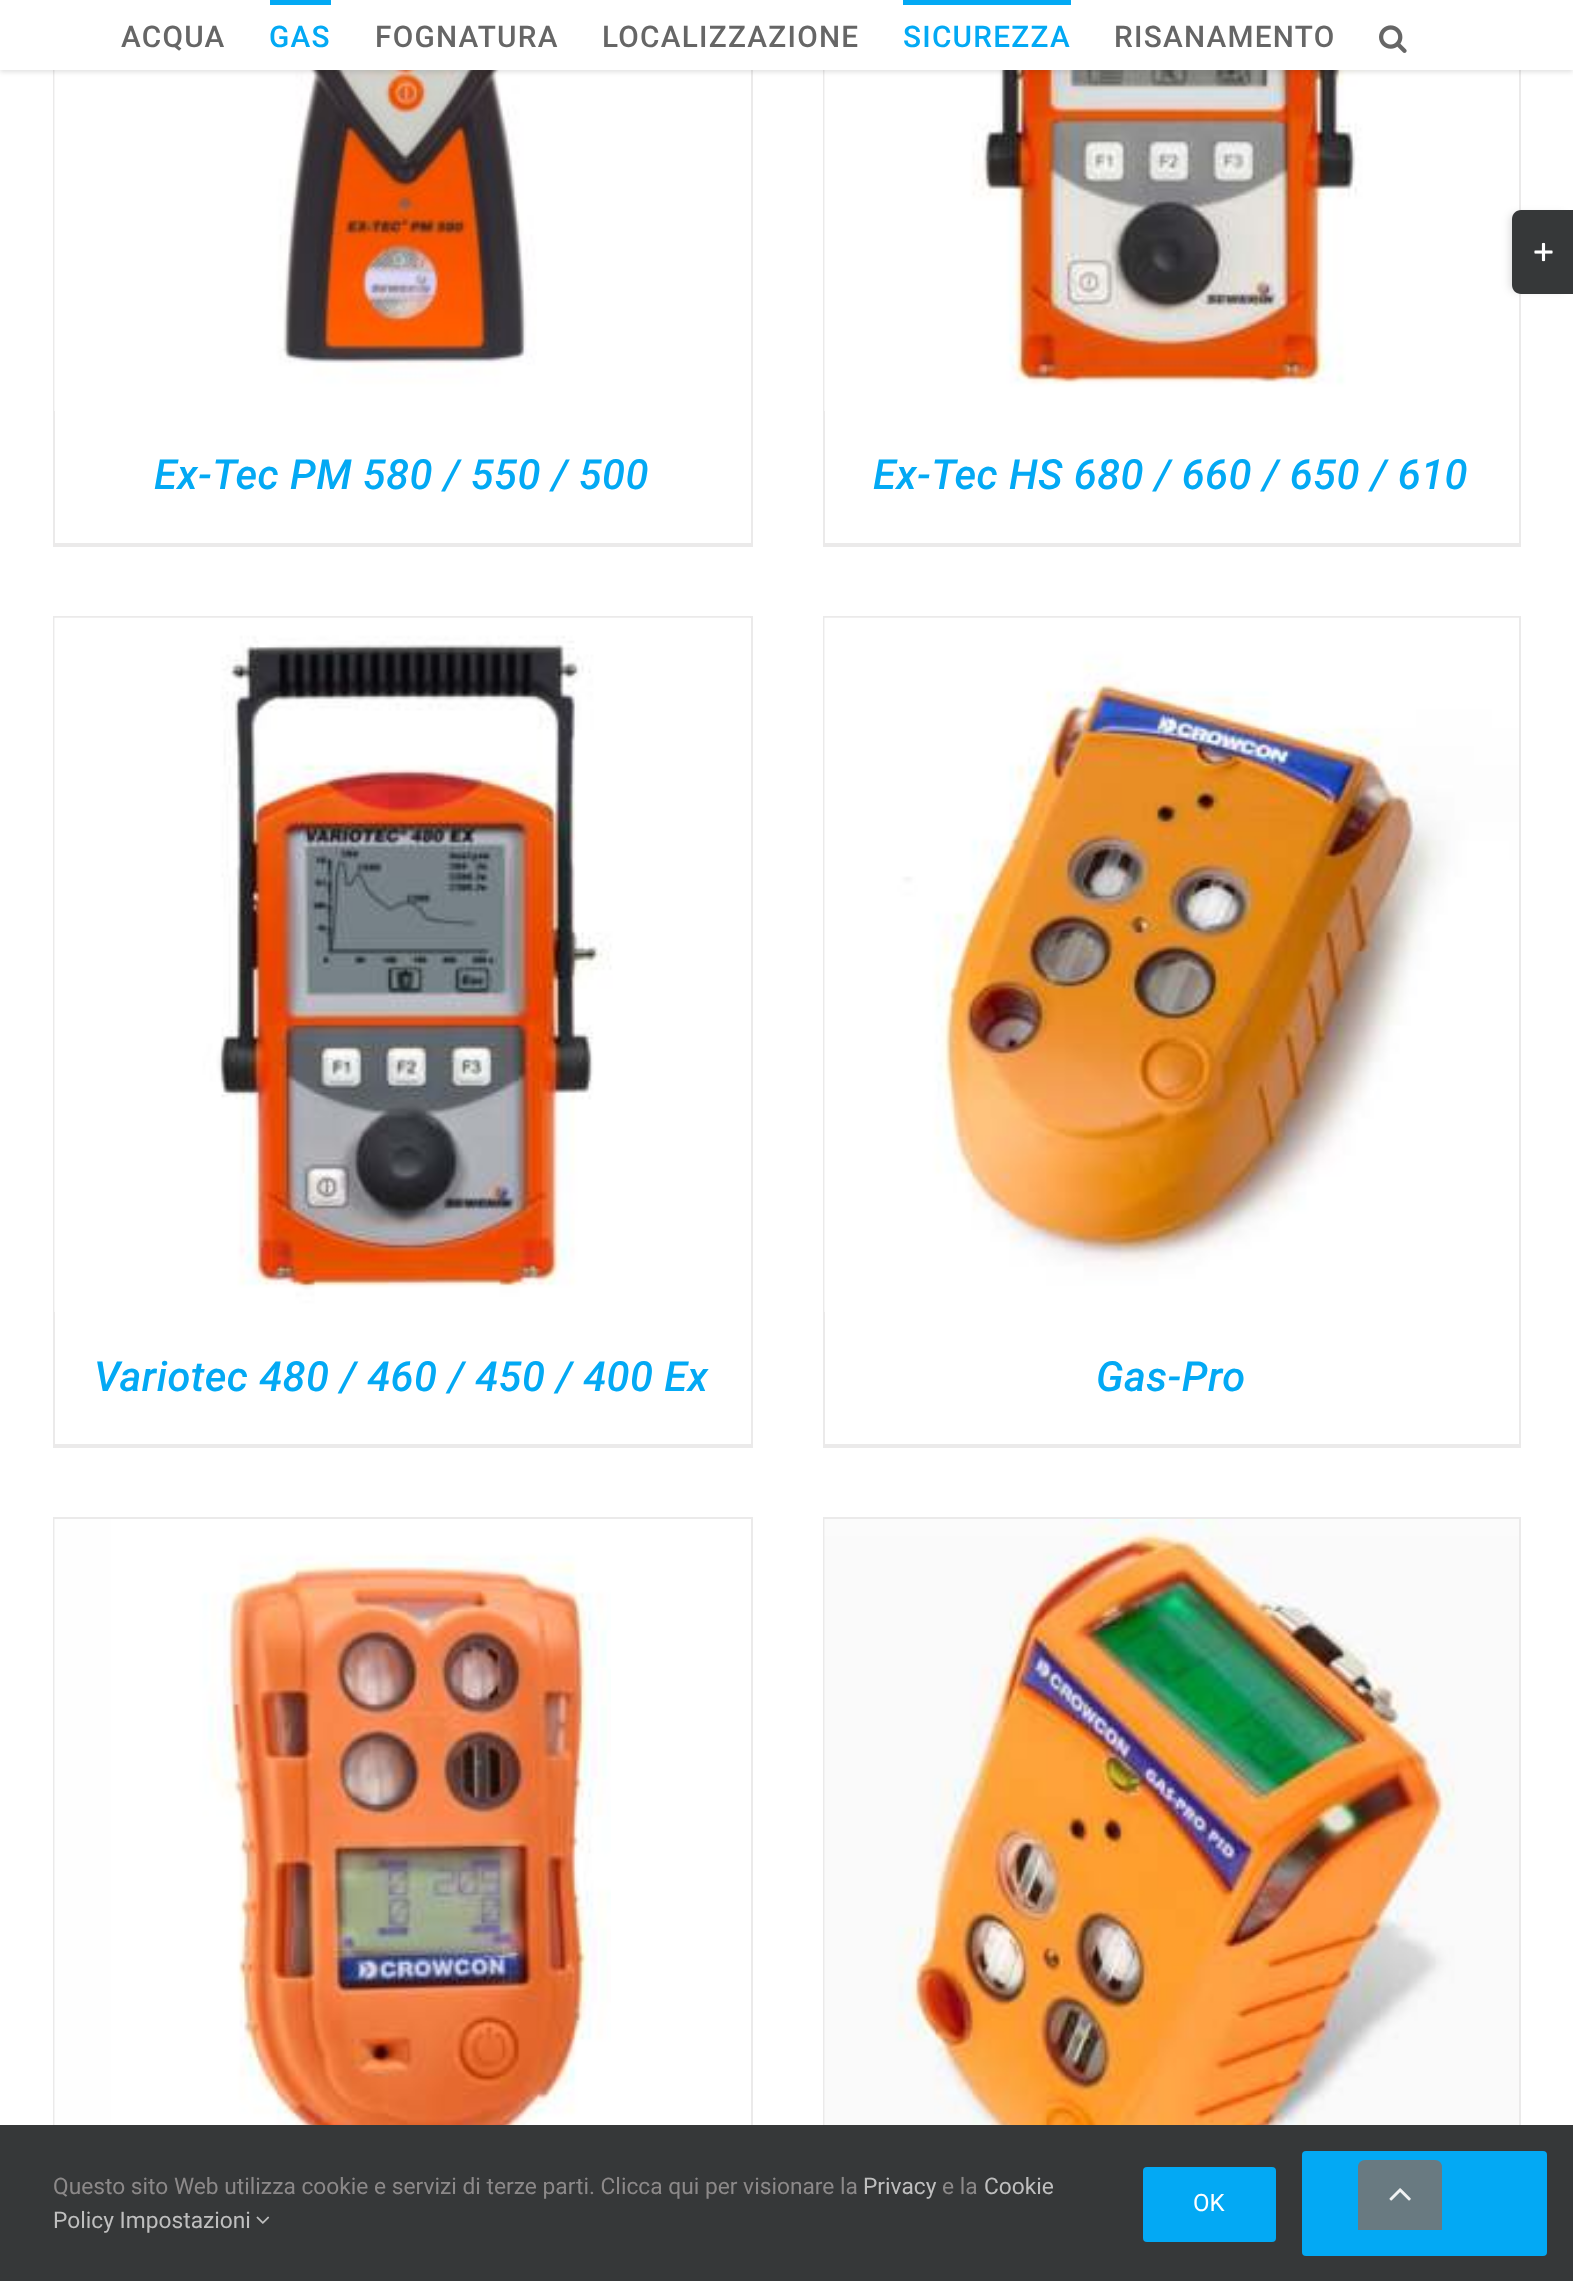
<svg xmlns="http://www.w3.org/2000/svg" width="1573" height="2281">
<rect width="100%" height="100%" fill="#fff"/>
<rect x="751" y="70" width="2" height="476" fill="#ebeaea"/>
<rect x="53" y="543" width="700" height="4" fill="#ebeaea"/>
<rect x="53" y="70" width="2" height="476" fill="#ebeaea"/>
<image x="54" y="70" width="483" height="341" href="media/3.png"/>
<rect x="1519" y="70" width="2" height="476" fill="#ebeaea"/>
<rect x="823" y="543" width="698" height="4" fill="#ebeaea"/>
<rect x="823" y="70" width="2" height="476" fill="#ebeaea"/>
<image x="824" y="70" width="541" height="341" href="media/4.png"/>
<rect y="2" width="1573" height="70" fill="#0000001f" filter="blur(2.5px)"/>
<rect width="1573" height="70" fill="#fff"/>
<text x="121" y="47" style="font-family:Roboto;font-size:29.75px;font-weight:500;letter-spacing:1.25px;fill:#666">ACQUA</text>
<rect x="270" width="61" height="5" fill="#03a9f4"/>
<text x="269" y="47" style="font-family:Roboto;font-size:29.75px;font-weight:500;letter-spacing:1.25px;fill:#03a9f4">GAS</text>
<text x="375" y="47" style="font-family:Roboto;font-size:29.75px;font-weight:500;letter-spacing:1.25px;fill:#666">FOGNATURA</text>
<text x="602" y="47" style="font-family:Roboto;font-size:29.75px;font-weight:500;letter-spacing:1.25px;fill:#666">LOCALIZZAZIONE</text>
<rect x="903" width="168" height="5" fill="#03a9f4"/>
<text x="903" y="47" style="font-family:Roboto;font-size:29.75px;font-weight:500;letter-spacing:1.25px;fill:#03a9f4">SICUREZZA</text>
<text x="1114" y="47" style="font-family:Roboto;font-size:29.75px;font-weight:500;letter-spacing:1.25px;fill:#666">RISANAMENTO</text>
<image x="1379" y="25" width="28" height="28" href="media/1.png"/>
<rect x="1510" y="214" width="55" height="77" rx="5" fill="#00000024" filter="blur(4.5px)"/>
<path d="M1521 210h52v84h-52c-5 0-9-4-9-9v-66c0-5 4-9 9-9z" fill="#363839"/>
<image x="1534" y="242" width="19" height="20" href="media/2.png"/>
<text x="154" y="489" style="font-family:Roboto;font-size:41.6px;font-weight:500;font-style:italic;letter-spacing:0.5px;fill:#03a9f4">Ex-Tec PM 580 / 550 / 500</text>
<text x="873" y="489" style="font-family:Roboto;font-size:41.6px;font-weight:500;font-style:italic;letter-spacing:0.5px;fill:#03a9f4">Ex-Tec HS 680 / 660 / 650 / 610</text>
<rect x="53" y="616" width="700" height="2" fill="#ebeaea"/>
<rect x="751" y="616" width="2" height="831" fill="#ebeaea"/>
<rect x="53" y="1444" width="700" height="4" fill="#ebeaea"/>
<rect x="53" y="616" width="2" height="831" fill="#ebeaea"/>
<image x="54" y="617" width="696" height="695" href="media/5.png"/>
<text x="94" y="1391" style="font-family:Roboto;font-size:41.6px;font-weight:500;font-style:italic;letter-spacing:0.5px;fill:#03a9f4">Variotec 480 / 460 / 450 / 400 Ex</text>
<rect x="823" y="616" width="698" height="2" fill="#ebeaea"/>
<rect x="1519" y="616" width="2" height="831" fill="#ebeaea"/>
<rect x="823" y="1444" width="698" height="4" fill="#ebeaea"/>
<rect x="823" y="616" width="2" height="831" fill="#ebeaea"/>
<image x="824" y="617" width="695" height="695" href="media/6.png"/>
<text x="1096" y="1391" style="font-family:Roboto;font-size:41.6px;font-weight:500;font-style:italic;letter-spacing:0.5px;fill:#03a9f4">Gas-Pro</text>
<rect x="53" y="1517" width="700" height="2" fill="#ebeaea"/>
<rect x="751" y="1517" width="2" height="608" fill="#ebeaea"/>
<rect x="53" y="1517" width="2" height="608" fill="#ebeaea"/>
<image x="54" y="1519" width="557" height="606" href="media/7.png"/>
<rect x="823" y="1517" width="698" height="2" fill="#ebeaea"/>
<rect x="1519" y="1517" width="2" height="608" fill="#ebeaea"/>
<rect x="823" y="1517" width="2" height="608" fill="#ebeaea"/>
<image x="824" y="1519" width="695" height="606" href="media/8.png"/>
<rect y="2125" width="1573" height="156" fill="#363839"/>
<text x="53" y="2194" style="font-family:Roboto;font-size:22.75px;fill:#8c8989">Questo sito Web utilizza cookie e servizi di terze parti. Clicca qui per visionare la</text>
<text x="863" y="2194" style="font-family:Roboto;font-size:22.75px;fill:#bfbfbf">Privacy</text>
<text x="942" y="2194" style="font-family:Roboto;font-size:22.75px;fill:#8c8989">e la</text>
<text x="984" y="2194" style="font-family:Roboto;font-size:22.75px;fill:#bfbfbf">Cookie</text>
<text x="53" y="2228" style="font-family:Roboto;font-size:22.75px;fill:#bfbfbf">Policy Impostazioni</text>
<image x="256" y="2216" width="14" height="8" href="media/9.png"/>
<rect x="1143" y="2167" width="133" height="75" rx="4" fill="#03a9f4"/>
<text x="1193" y="2211" style="font-family:Roboto;font-size:24px;fill:#fff">OK</text>
<rect x="1302" y="2151" width="245" height="105" rx="4" fill="#03a9f4"/>
<path d="M1365 2160h70c4 0 7 3 7 7v63h-84v-63c0-4 3-7 7-7z" fill="#747474e6"/>
<image x="1389" y="2188" width="22" height="13" href="media/10.png"/>
</svg>
